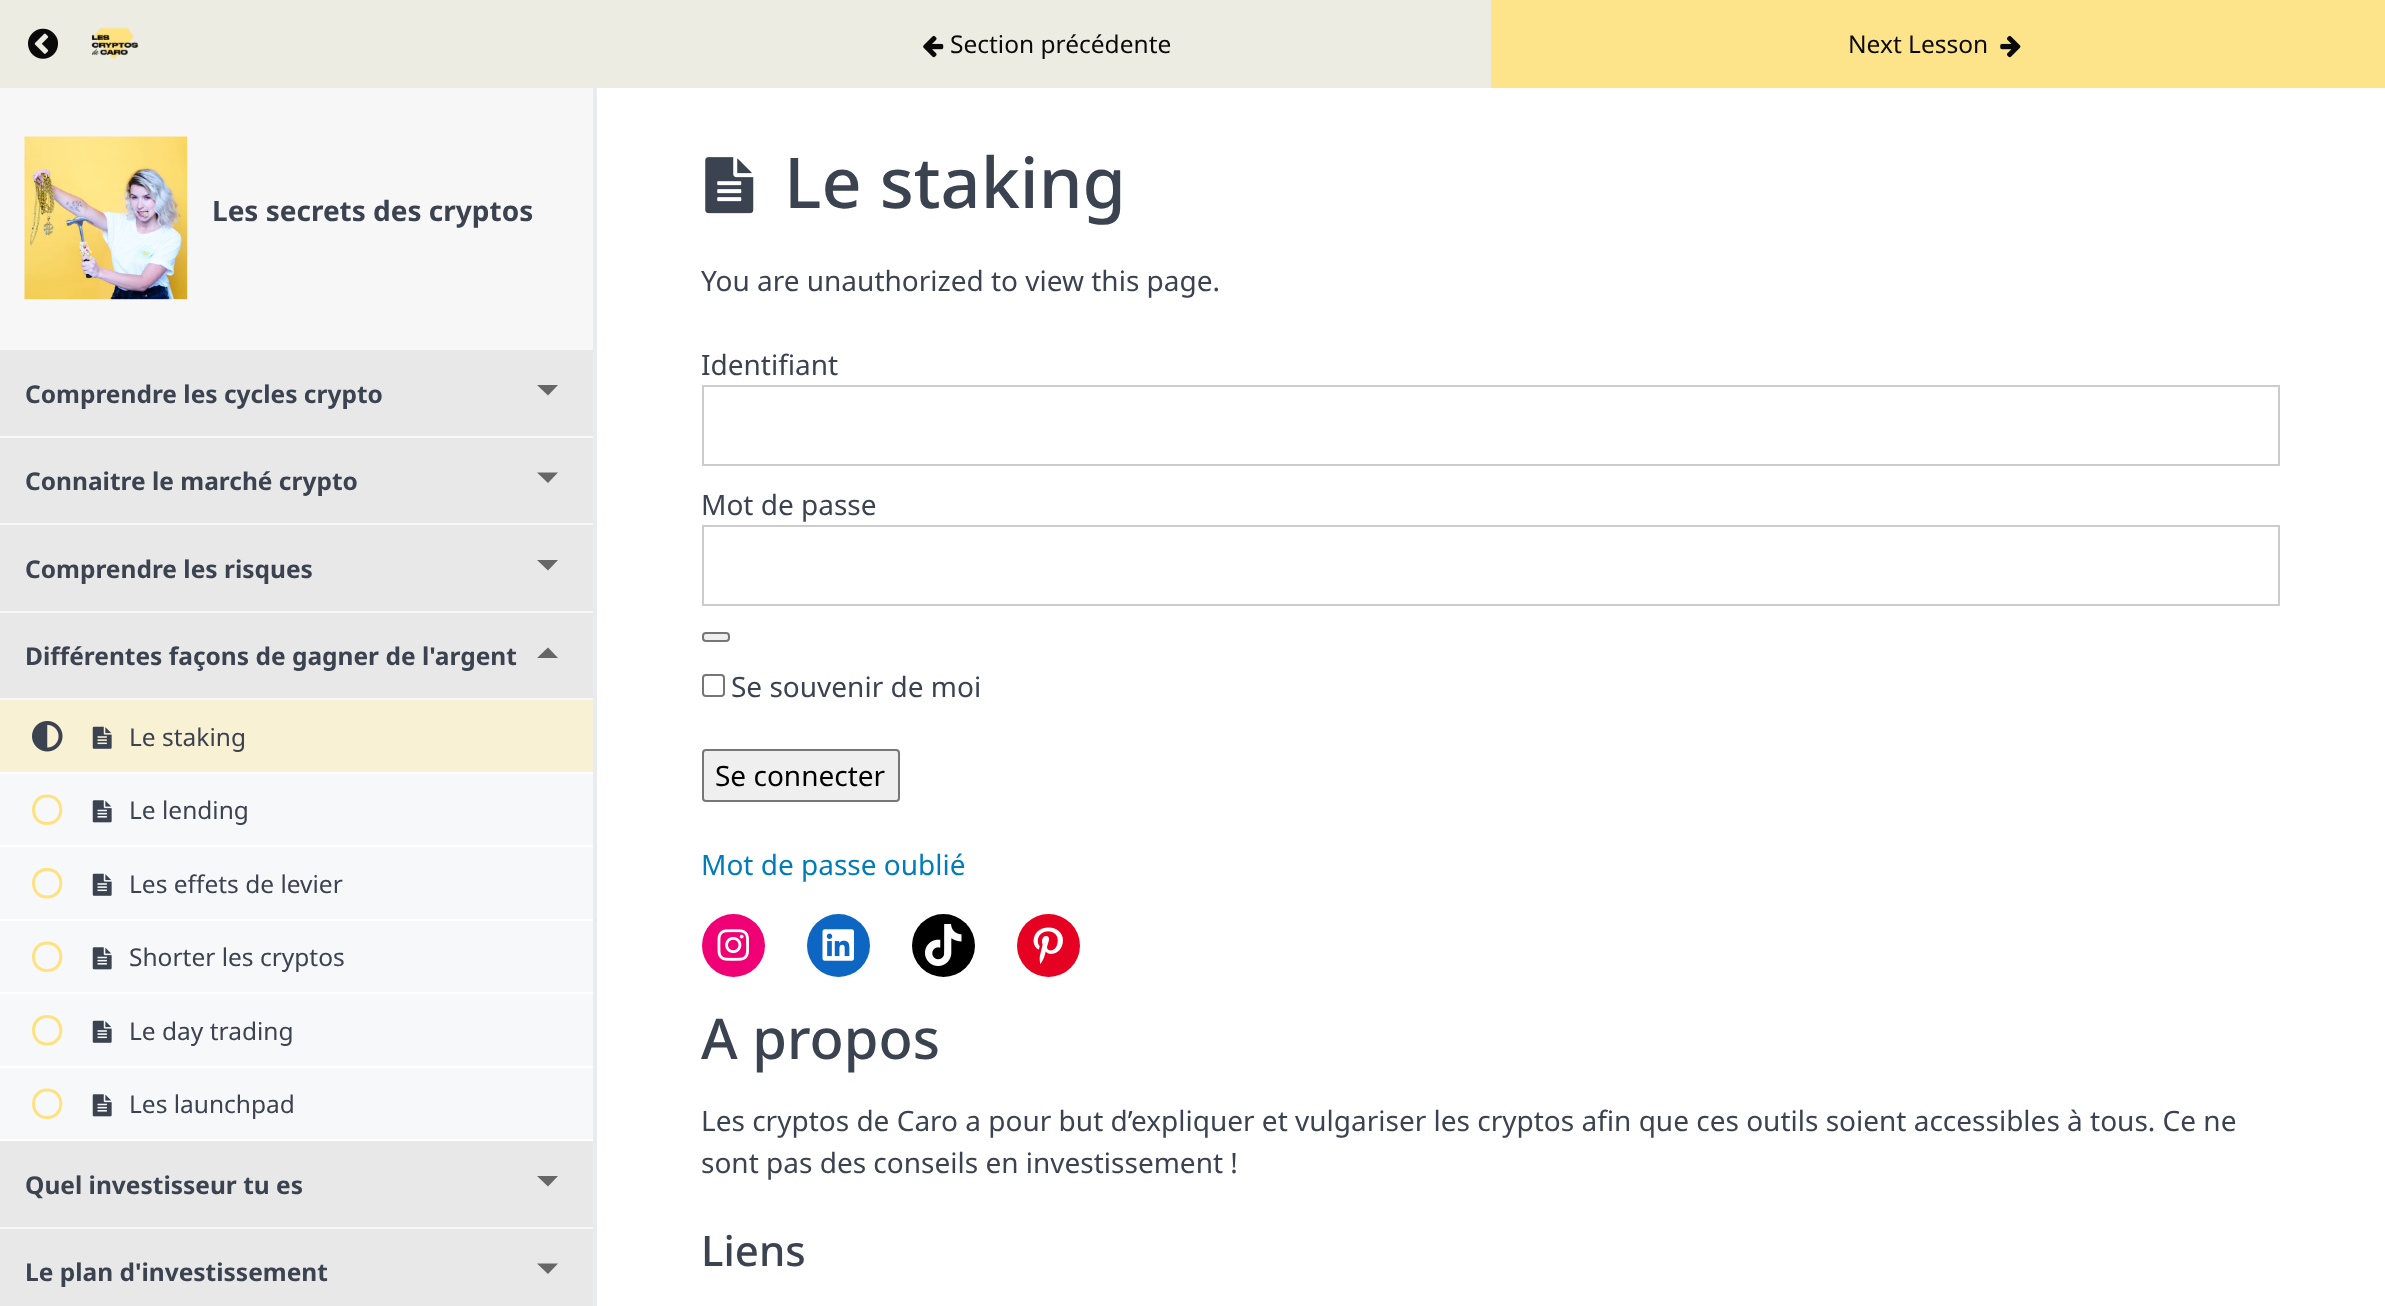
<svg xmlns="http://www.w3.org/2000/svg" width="2385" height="1306">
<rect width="100%" height="100%" fill="#fff"/>
<rect width="1491" height="88" fill="#edece2"/>
<image x="28" y="28" width="30" height="31" href="media/1.png"/>
<image x="91" y="27" width="48" height="33" href="media/2.png"/>
<image x="923" y="35" width="21" height="23" href="media/3.png"/>
<text x="950" y="53" style="font-family:Noto Sans;font-size:24.5px;fill:#0a0a0a">Section précédente</text>
<rect x="1491" width="894" height="88" fill="#fde389"/>
<text x="1848" y="53" style="font-family:Noto Sans;font-size:24.5px;fill:#0a0a0a">Next Lesson</text>
<image x="2000" y="35" width="21" height="23" href="media/4.png"/>
<rect y="88" width="593" height="260" fill="#f7f7f7"/>
<rect x="593" y="88" width="4" height="1218" fill="#e8ebef"/>
<image x="24" y="136" width="164" height="164" href="media/5.png"/>
<text x="212" y="221" style="font-family:Noto Sans;font-size:28px;font-weight:bold;fill:#3b4351">Les secrets des cryptos</text>
<rect y="348" width="593" height="2" fill="#f7f8f9"/>
<rect y="436" width="593" height="2" fill="#f7f8f9"/>
<rect y="350" width="593" height="86" fill="#e8e8e8"/>
<text x="25" y="403" style="font-family:Noto Sans;font-size:24.5px;font-weight:bold;fill:#3b4351">Comprendre les cycles crypto</text>
<path d="M537 385h21l-10 10.5z" fill="#666"/>
<rect y="523" width="593" height="2" fill="#f7f8f9"/>
<rect y="438" width="593" height="85" fill="#e8e8e8"/>
<text x="25" y="490" style="font-family:Noto Sans;font-size:24.5px;font-weight:bold;fill:#3b4351">Connaitre le marché crypto</text>
<path d="M537 472.5h21l-10 10.5z" fill="#666"/>
<rect y="611" width="593" height="2" fill="#f7f8f9"/>
<rect y="525" width="593" height="86" fill="#e8e8e8"/>
<text x="25" y="578" style="font-family:Noto Sans;font-size:24.5px;font-weight:bold;fill:#3b4351">Comprendre les risques</text>
<path d="M537 560h21l-10 10.5z" fill="#666"/>
<rect y="698" width="593" height="441" fill="#f7f8f9"/>
<rect y="613" width="593" height="85" fill="#e8e8e8"/>
<text x="25" y="665" style="font-family:Noto Sans;font-size:24.5px;font-weight:bold;fill:#3b4351">Différentes façons de gagner de l'argent</text>
<path d="M558 658h-21l11-10.5z" fill="#666"/>
<rect y="700" width="593" height="72" fill="#f9f1d4"/>
<rect y="772" width="593" height="2" fill="#fff"/>
<image x="32" y="721" width="31" height="31" href="media/6.png"/>
<image x="92" y="726" width="20" height="23" href="media/7.png"/>
<text x="129" y="746" style="font-family:Noto Sans;font-size:24.5px;fill:#3b4351">Le staking</text>
<rect y="845" width="593" height="2" fill="#fff"/>
<path d="M47 794.5c-20 0-20 30.5 0 30.5c20.5 0 20.5-30.5 0-30.5zm0 27.5c-16 0-16-24.5 0-24.5c16.5 0 16.5 24.5 0 24.5z" fill="#ffe27f"/>
<image x="92" y="800" width="20" height="23" href="media/8.png"/>
<text x="129" y="819" style="font-family:Noto Sans;font-size:24.5px;fill:#3b4351">Le lending</text>
<rect y="919" width="593" height="2" fill="#fff"/>
<path d="M47 868c-20 0-20 30.5 0 30.5c20.5 0 20.5-30.5 0-30.5zm0 27.5c-16 0-16-24.5 0-24.5c16.5 0 16.5 24.5 0 24.5z" fill="#ffe27f"/>
<image x="92" y="873" width="20" height="23" href="media/9.png"/>
<text x="129" y="893" style="font-family:Noto Sans;font-size:24.5px;fill:#3b4351">Les effets de levier</text>
<rect y="992" width="593" height="2" fill="#fff"/>
<path d="M47 941.5c-20 0-20 30.5 0 30.5c20.5 0 20.5-30.5 0-30.5zm0 27.5c-16 0-16-24.5 0-24.5c16.5 0 16.5 24.5 0 24.5z" fill="#ffe27f"/>
<image x="92" y="947" width="20" height="23" href="media/8.png"/>
<text x="129" y="966" style="font-family:Noto Sans;font-size:24.5px;fill:#3b4351">Shorter les cryptos</text>
<rect y="1066" width="593" height="2" fill="#fff"/>
<path d="M47 1015c-20 0-20 30.5 0 30.5c20.5 0 20.5-30.5 0-30.5zm0 27.5c-16 0-16-24.5 0-24.5c16.5 0 16.5 24.5 0 24.5z" fill="#ffe27f"/>
<image x="92" y="1020" width="20" height="23" href="media/9.png"/>
<text x="129" y="1040" style="font-family:Noto Sans;font-size:24.5px;fill:#3b4351">Le day trading</text>
<path d="M47 1088.5c-20 0-20 30.5 0 30.5c20.5 0 20.5-30.5 0-30.5zm0 27.5c-16 0-16-24.5 0-24.5c16.5 0 16.5 24.5 0 24.5z" fill="#ffe27f"/>
<image x="92" y="1094" width="20" height="23" href="media/8.png"/>
<text x="129" y="1113" style="font-family:Noto Sans;font-size:24.5px;fill:#3b4351">Les launchpad</text>
<rect y="1227" width="593" height="2" fill="#f7f8f9"/>
<rect y="1141" width="593" height="86" fill="#e8e8e8"/>
<text x="25" y="1194" style="font-family:Noto Sans;font-size:24.5px;font-weight:bold;fill:#3b4351">Quel investisseur tu es</text>
<path d="M537 1176h21l-10 10.5z" fill="#666"/>
<rect y="1229" width="593" height="77" fill="#e8e8e8"/>
<text x="25" y="1281" style="font-family:Noto Sans;font-size:24.5px;font-weight:bold;fill:#3b4351">Le plan d'investissement</text>
<path d="M537 1263.5h21l-10 10.5z" fill="#666"/>
<image x="705" y="157" width="49" height="57" href="media/10.png"/>
<text x="784" y="208" style="font-family:Noto Sans;font-size:70px;font-weight:500;fill:#3b4351">Le staking</text>
<text x="701" y="291" style="font-family:Noto Sans;font-size:28px;fill:#3b4351">You are unauthorized to view this page.</text>
<text x="701" y="375" style="font-family:Noto Sans;font-size:28px;fill:#3b4351">Identifiant</text>
<rect x="703" y="386" width="1576" height="79" fill="none" stroke="#ccc" stroke-width="2"/>
<text x="701" y="515" style="font-family:Noto Sans;font-size:28px;fill:#3b4351">Mot de passe</text>
<rect x="703" y="526" width="1576" height="79" fill="none" stroke="#ccc" stroke-width="2"/>
<rect x="703" y="633" width="26" height="8" rx="3" fill="#efefef" stroke="#767676" stroke-width="2"/>
<rect x="703" y="675" width="21" height="21" rx="3" fill="none" stroke="#767676" stroke-width="2"/>
<text x="731" y="697" style="font-family:Noto Sans;font-size:28px;fill:#3b4351">Se souvenir de moi</text>
<rect x="703" y="750" width="196" height="51" rx="3" fill="#efefef" stroke="#767676" stroke-width="2"/>
<text x="715" y="786" style="font-family:Noto Sans;font-size:28px;fill:#000">Se connecter</text>
<text x="701" y="875" style="font-family:Noto Sans;font-size:28px;fill:#007cba">Mot de passe oublié</text>
<circle cx="733.5" cy="945.5" r="31.5" fill="#f00075"/>
<image x="717" y="929" width="32" height="32" href="media/11.png"/>
<circle cx="838.5" cy="945.5" r="31.5" fill="#0d66c2"/>
<image x="822" y="929" width="32" height="32" href="media/12.png"/>
<circle cx="943.5" cy="945.5" r="31.5" fill="#000"/>
<image x="925" y="924" width="37" height="42" href="media/13.png"/>
<circle cx="1048.5" cy="945.5" r="31.5" fill="#e60122"/>
<image x="1033" y="927" width="30" height="37" href="media/14.png"/>
<text x="701" y="1059" style="font-family:Noto Sans;font-size:56px;font-weight:500;fill:#3b4351">A propos</text>
<text x="701" y="1131" style="font-family:Noto Sans;font-size:28px;fill:#3b4351">Les cryptos de Caro a pour but d’expliquer et vulgariser les cryptos afin que ces outils soient accessibles à tous. Ce ne</text>
<text x="701" y="1173" style="font-family:Noto Sans;font-size:28px;fill:#3b4351">sont pas des conseils en investissement !</text>
<text x="701" y="1266" style="font-family:Noto Sans;font-size:42px;font-weight:500;fill:#3b4351">Liens</text>
</svg>
